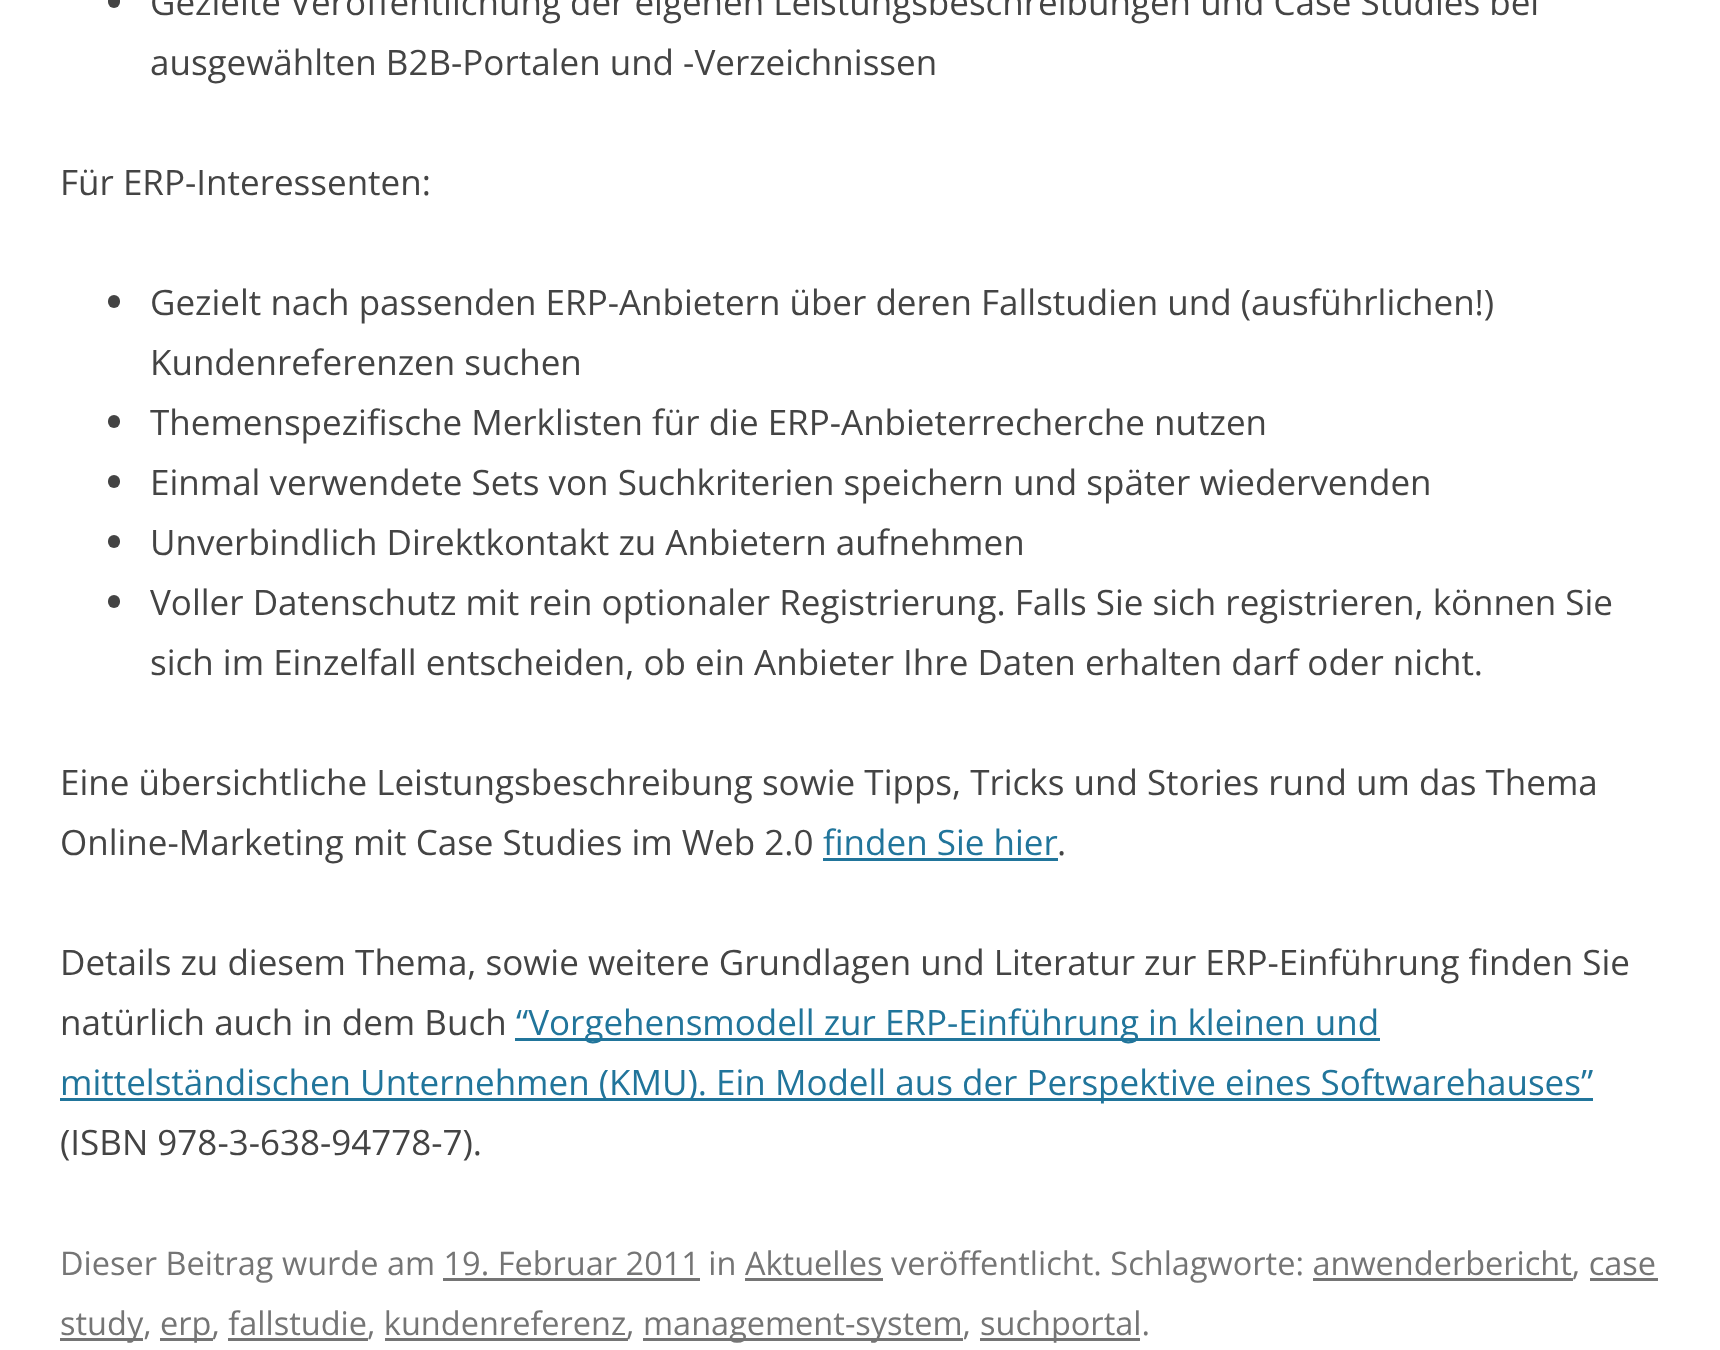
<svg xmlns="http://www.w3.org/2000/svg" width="1720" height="1350">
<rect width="100%" height="100%" fill="#fff"/>
<rect x="108" y="-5" width="12" height="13" rx="6" fill="#444"/>
<text x="150" y="15" style="font-family:Open Sans;font-size:35px;fill:#444">Gezielte Veröffentlichung der eigenen Leistungsbeschreibungen und Case Studies bei</text>
<text x="150" y="75" style="font-family:Open Sans;font-size:35px;fill:#444">ausgewählten B2B-Portalen und -Verzeichnissen</text>
<text x="60" y="195" style="font-family:Open Sans;font-size:35px;fill:#444">Für ERP-Interessenten:</text>
<rect x="108" y="295" width="12" height="13" rx="6" fill="#444"/>
<text x="150" y="315" style="font-family:Open Sans;font-size:35px;fill:#444">Gezielt nach passenden ERP-Anbietern über deren Fallstudien und (ausführlichen!)</text>
<text x="150" y="375" style="font-family:Open Sans;font-size:35px;fill:#444">Kundenreferenzen suchen</text>
<rect x="108" y="415" width="12" height="13" rx="6" fill="#444"/>
<text x="150" y="435" style="font-family:Open Sans;font-size:35px;fill:#444">Themenspezifische Merklisten für die ERP-Anbieterrecherche nutzen</text>
<rect x="108" y="475" width="12" height="13" rx="6" fill="#444"/>
<text x="150" y="495" style="font-family:Open Sans;font-size:35px;fill:#444">Einmal verwendete Sets von Suchkriterien speichern und später wiedervenden</text>
<rect x="108" y="535" width="12" height="13" rx="6" fill="#444"/>
<text x="150" y="555" style="font-family:Open Sans;font-size:35px;fill:#444">Unverbindlich Direktkontakt zu Anbietern aufnehmen</text>
<rect x="108" y="595" width="12" height="13" rx="6" fill="#444"/>
<text x="150" y="615" style="font-family:Open Sans;font-size:35px;fill:#444">Voller Datenschutz mit rein optionaler Registrierung. Falls Sie sich registrieren, können Sie</text>
<text x="150" y="675" style="font-family:Open Sans;font-size:35px;fill:#444">sich im Einzelfall entscheiden, ob ein Anbieter Ihre Daten erhalten darf oder nicht.</text>
<text x="60" y="795" style="font-family:Open Sans;font-size:35px;fill:#444">Eine übersichtliche Leistungsbeschreibung sowie Tipps, Tricks und Stories rund um das Thema</text>
<text x="60" y="855" style="font-family:Open Sans;font-size:35px;fill:#444">Online-Marketing mit Case Studies im Web 2.0</text>
<text x="823" y="855" style="font-family:Open Sans;font-size:35px;fill:#21759b">finden Sie hier</text>
<rect x="823" y="858" width="235" height="3" fill="#21759b"/>
<text x="1057" y="855" style="font-family:Open Sans;font-size:35px;fill:#444">.</text>
<text x="60" y="975" style="font-family:Open Sans;font-size:35px;fill:#444">Details zu diesem Thema, sowie weitere Grundlagen und Literatur zur ERP-Einführung finden Sie</text>
<text x="60" y="1035" style="font-family:Open Sans;font-size:35px;fill:#444">natürlich auch in dem Buch</text>
<rect x="515" y="1038" width="865" height="3" fill="#21759b"/>
<text x="516" y="1035" style="font-family:Open Sans;font-size:35px;fill:#21759b">“Vorgehensmodell zur ERP-Einführung in kleinen und</text>
<rect x="60" y="1098" width="1533" height="3" fill="#21759b"/>
<text x="60" y="1095" style="font-family:Open Sans;font-size:35px;fill:#21759b">mittelständischen Unternehmen (KMU). Ein Modell aus der Perspektive eines Softwarehauses”</text>
<text x="60" y="1155" style="font-family:Open Sans;font-size:35px;fill:#444">(ISBN 978-3-638-94778-7).</text>
<text x="60" y="1275" style="font-family:Open Sans;font-size:32.5px;fill:#757575">Dieser Beitrag wurde am 19. Februar 2011 in Aktuelles veröffentlicht. Schlagworte: anwenderbericht, case</text>
<rect x="443" y="1278" width="257" height="3" fill="#757575"/>
<rect x="745" y="1278" width="138" height="3" fill="#757575"/>
<rect x="1313" y="1278" width="260" height="3" fill="#757575"/>
<rect x="60" y="1338" width="83" height="3" fill="#757575"/>
<text x="60" y="1335" style="font-family:Open Sans;font-size:32.5px;fill:#757575">study,</text>
<rect x="1590" y="1278" width="68" height="3" fill="#757575"/>
<rect x="160" y="1338" width="53" height="3" fill="#757575"/>
<text x="160" y="1335" style="font-family:Open Sans;font-size:32.5px;fill:#757575">erp, fallstudie, kundenreferenz</text>
<rect x="385" y="1338" width="243" height="3" fill="#757575"/>
<text x="626" y="1335" style="font-family:Open Sans;font-size:32.5px;fill:#757575">,</text>
<rect x="643" y="1338" width="320" height="3" fill="#757575"/>
<text x="643" y="1335" style="font-family:Open Sans;font-size:32.5px;fill:#757575">management-system,</text>
<rect x="980" y="1338" width="160" height="3" fill="#757575"/>
<text x="980" y="1335" style="font-family:Open Sans;font-size:32.5px;fill:#757575">suchportal.</text>
<rect x="228" y="1338" width="140" height="3" fill="#757575"/>
</svg>
